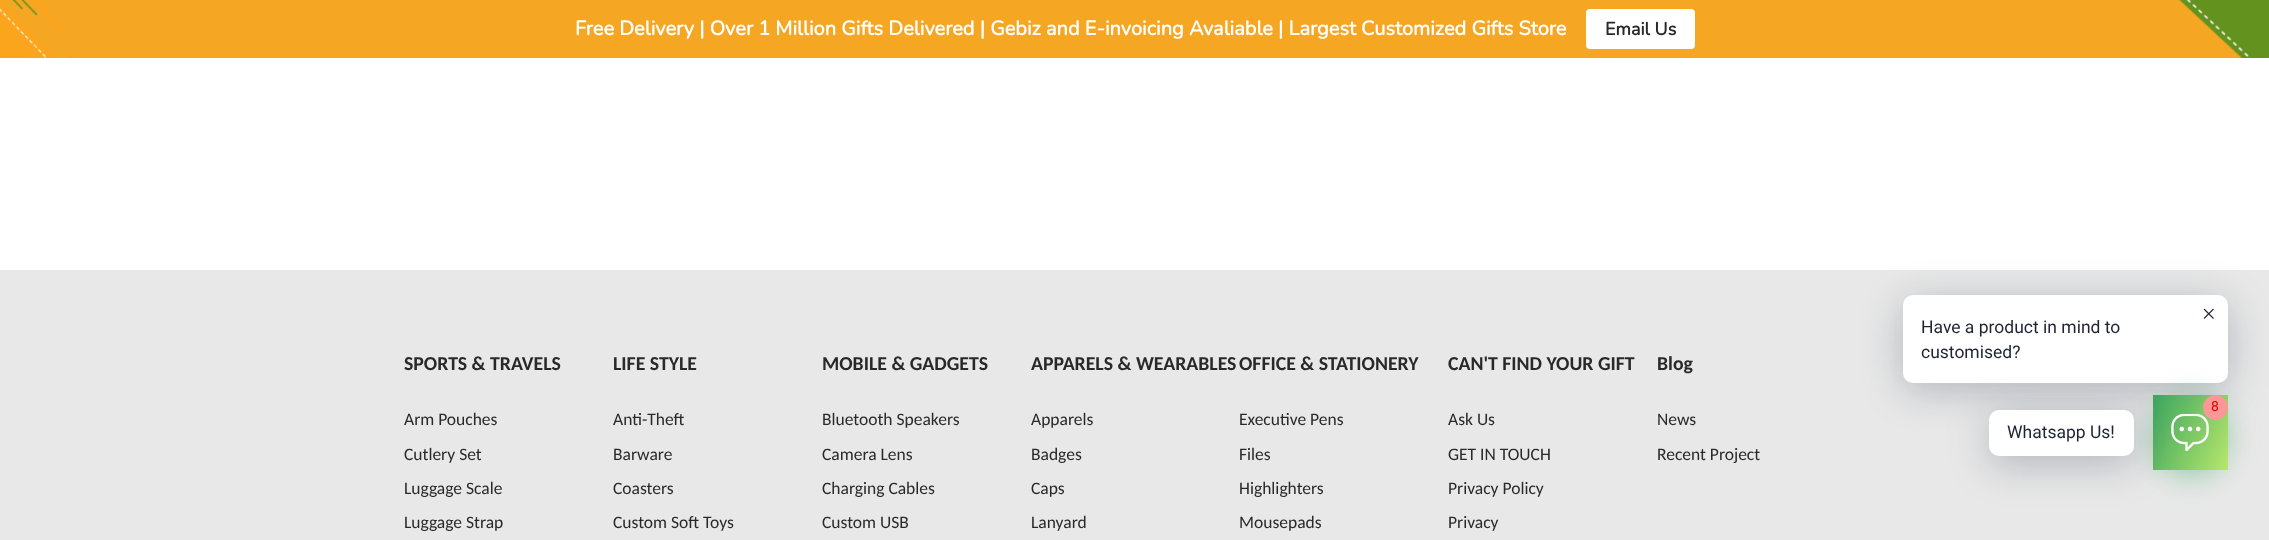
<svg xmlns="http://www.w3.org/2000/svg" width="2269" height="540">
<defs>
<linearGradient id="g1" gradientUnits="userSpaceOnUse" x1="2145" y1="411" x2="2235" y2="454"><stop offset="0" stop-color="#3aa560"/><stop offset="1" stop-color="#b7e66c"/></linearGradient>
</defs>
<rect width="100%" height="100%" fill="#fff"/>
<rect width="2269" height="58" fill="#f5a623"/>
<image x="0" y="0" width="2269" height="58" href="media/1.png"/>
<text x="575" y="35" style="font-family:Nunito;font-size:20px;font-weight:bold;fill:#fff">Free Delivery | Over 1 Million Gifts Delivered | Gebiz and E-invoicing Avaliable | Largest Customized Gifts Store</text>
<rect x="1586" y="9" width="109" height="40" rx="4" fill="#fff"/>
<text x="1605" y="35" style="font-family:Nunito;font-size:18px;font-weight:bold;fill:#292929">Email Us</text>
<rect y="270" width="2269" height="270" fill="#e8e8e8"/>
<text x="404" y="370" style="font-family:Carlito;font-size:19.75px;font-weight:bold;fill:#292929">SPORTS &amp; TRAVELS</text>
<text x="404" y="425" style="font-family:Carlito;font-size:17.5px;fill:#292929">Arm Pouches</text>
<text x="404" y="460" style="font-family:Carlito;font-size:17.5px;fill:#292929">Cutlery Set</text>
<text x="404" y="494" style="font-family:Carlito;font-size:17.5px;fill:#292929">Luggage Scale</text>
<text x="404" y="528" style="font-family:Carlito;font-size:17.5px;fill:#292929">Luggage Strap</text>
<text x="613" y="370" style="font-family:Carlito;font-size:19.75px;font-weight:bold;fill:#292929">LIFE STYLE</text>
<text x="613" y="425" style="font-family:Carlito;font-size:17.5px;fill:#292929">Anti-Theft</text>
<text x="613" y="460" style="font-family:Carlito;font-size:17.5px;fill:#292929">Barware</text>
<text x="613" y="494" style="font-family:Carlito;font-size:17.5px;fill:#292929">Coasters</text>
<text x="613" y="528" style="font-family:Carlito;font-size:17.5px;fill:#292929">Custom Soft Toys</text>
<text x="822" y="370" style="font-family:Carlito;font-size:19.75px;font-weight:bold;fill:#292929">MOBILE &amp; GADGETS</text>
<text x="822" y="425" style="font-family:Carlito;font-size:17.5px;fill:#292929">Bluetooth Speakers</text>
<text x="822" y="460" style="font-family:Carlito;font-size:17.5px;fill:#292929">Camera Lens</text>
<text x="822" y="494" style="font-family:Carlito;font-size:17.5px;fill:#292929">Charging Cables</text>
<text x="822" y="528" style="font-family:Carlito;font-size:17.5px;fill:#292929">Custom USB</text>
<text x="1031" y="370" style="font-family:Carlito;font-size:19.75px;font-weight:bold;fill:#292929">APPARELS &amp; WEARABLES</text>
<text x="1031" y="425" style="font-family:Carlito;font-size:17.5px;fill:#292929">Apparels</text>
<text x="1031" y="460" style="font-family:Carlito;font-size:17.5px;fill:#292929">Badges</text>
<text x="1031" y="494" style="font-family:Carlito;font-size:17.5px;fill:#292929">Caps</text>
<text x="1031" y="528" style="font-family:Carlito;font-size:17.5px;fill:#292929">Lanyard</text>
<text x="1239" y="370" style="font-family:Carlito;font-size:19.75px;font-weight:bold;fill:#292929">OFFICE &amp; STATIONERY</text>
<text x="1239" y="425" style="font-family:Carlito;font-size:17.5px;fill:#292929">Executive Pens</text>
<text x="1239" y="460" style="font-family:Carlito;font-size:17.5px;fill:#292929">Files</text>
<text x="1239" y="494" style="font-family:Carlito;font-size:17.5px;fill:#292929">Highlighters</text>
<text x="1239" y="528" style="font-family:Carlito;font-size:17.5px;fill:#292929">Mousepads</text>
<text x="1448" y="370" style="font-family:Carlito;font-size:19.75px;font-weight:bold;fill:#292929">CAN'T FIND YOUR GIFT</text>
<text x="1448" y="425" style="font-family:Carlito;font-size:17.5px;fill:#292929">Ask Us</text>
<text x="1448" y="460" style="font-family:Carlito;font-size:17.5px;fill:#292929">GET IN TOUCH</text>
<text x="1448" y="494" style="font-family:Carlito;font-size:17.5px;fill:#292929">Privacy Policy</text>
<text x="1448" y="528" style="font-family:Carlito;font-size:17.5px;fill:#292929">Privacy</text>
<text x="1657" y="370" style="font-family:Carlito;font-size:19.75px;font-weight:bold;fill:#292929">Blog</text>
<text x="1657" y="425" style="font-family:Carlito;font-size:17.5px;fill:#292929">News</text>
<text x="1657" y="460" style="font-family:Carlito;font-size:17.5px;fill:#292929">Recent Project</text>
<rect x="1903" y="303" width="325" height="87" rx="10" fill="#00122e3d" filter="blur(20px)"/>
<rect x="1903" y="295" width="325" height="88" rx="10" fill="#fff"/>
<image x="2203" y="308" width="11" height="11" href="media/2.png"/>
<text x="1921" y="333" style="font-family:Roboto;font-size:17.5px;fill:#1e2433">Have a product in mind to</text>
<text x="1921" y="358" style="font-family:Roboto;font-size:17.5px;fill:#1e2433">customised?</text>
<rect x="2153" y="400" width="75" height="75" rx="37.5" fill="#3aa56080" filter="blur(15px)"/>
<rect x="2153" y="395" width="75" height="75" fill="url(#g1)"/>
<rect x="1989" y="418" width="145" height="46" rx="10" fill="#00122e3d" filter="blur(20px)"/>
<image x="2171" y="414" width="38" height="37" href="media/3.png"/>
<circle cx="2215.5" cy="407.5" r="12.5" fill="#fb9797"/>
<text x="2211" y="411" style="font-family:Roboto;font-size:14px;fill:#d00">8</text>
<rect x="1989" y="410" width="145" height="46" rx="10" fill="#fff"/>
<text x="2007" y="438" style="font-family:Roboto;font-size:17.5px;fill:#1e2433">Whatsapp Us!</text>
</svg>
